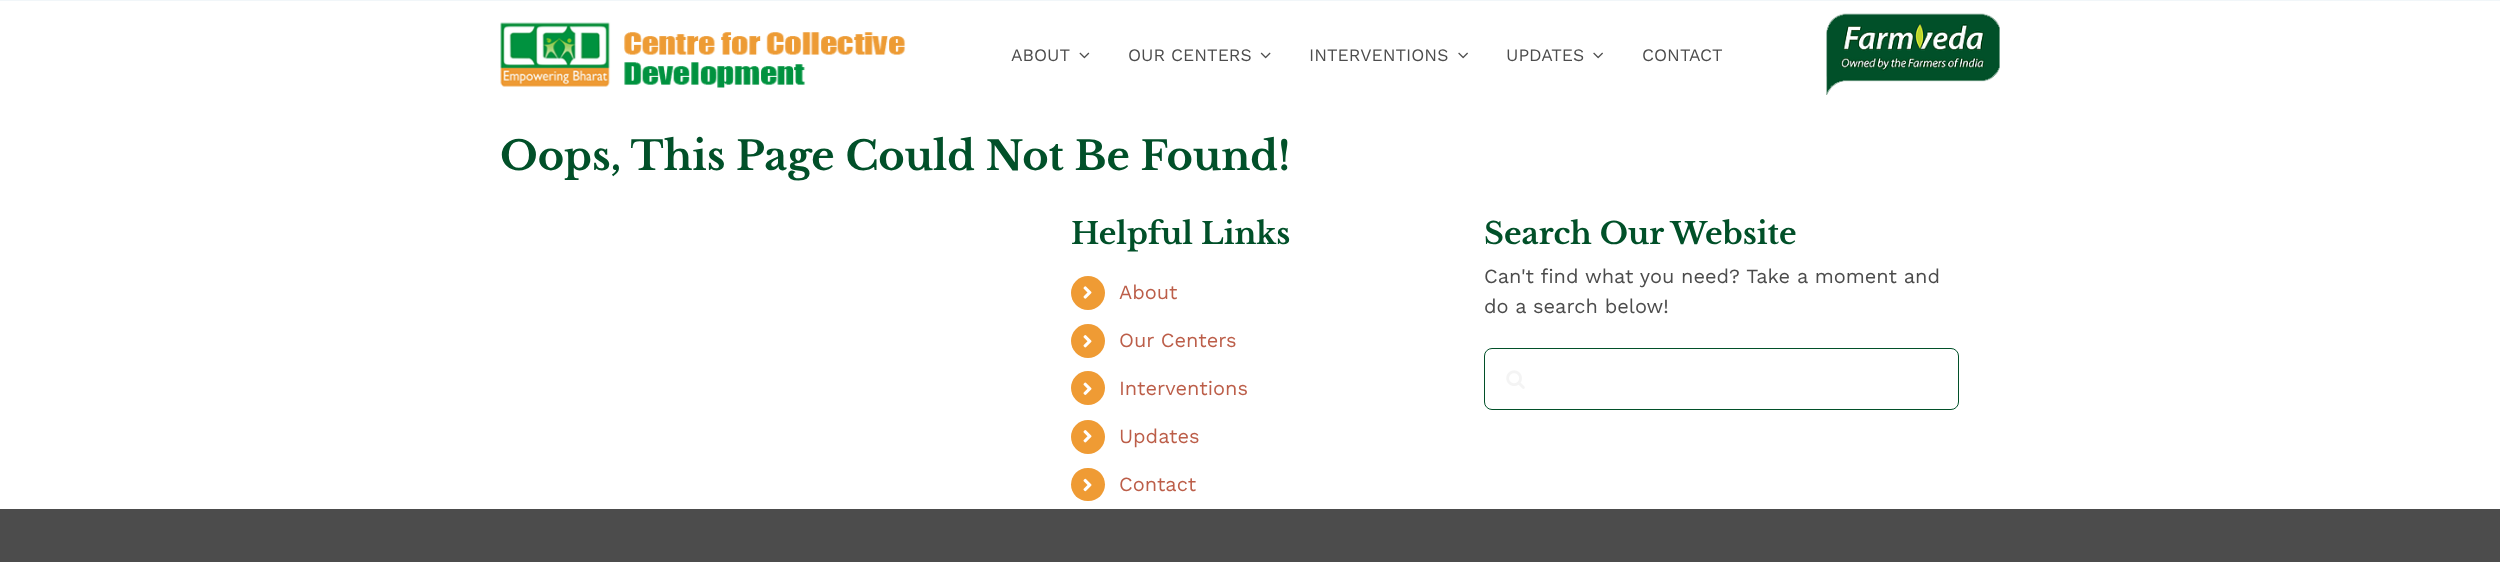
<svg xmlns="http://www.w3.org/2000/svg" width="2500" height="562">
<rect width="100%" height="100%" fill="#fff"/>
<rect width="2500" height="1" fill="#f1f6f9"/>
<image x="500" y="22" width="406" height="66" href="media/1.png"/>
<text x="1011" y="61" style="font-family:Work Sans;font-size:17.5px;fill:#4c4c4c">ABOUT</text>
<image x="1079" y="52" width="11" height="7" href="media/2.png"/>
<text x="1128" y="61" style="font-family:Work Sans;font-size:17.5px;fill:#4c4c4c">OUR CENTERS</text>
<image x="1260" y="52" width="11" height="7" href="media/3.png"/>
<text x="1309" y="61" style="font-family:Work Sans;font-size:17.5px;fill:#4c4c4c">INTERVENTIONS</text>
<image x="1458" y="52" width="10" height="7" href="media/4.png"/>
<text x="1506" y="61" style="font-family:Work Sans;font-size:17.5px;fill:#4c4c4c">UPDATES</text>
<image x="1593" y="52" width="10" height="7" href="media/4.png"/>
<text x="1642" y="61" style="font-family:Work Sans;font-size:17.5px;fill:#4c4c4c">CONTACT</text>
<image x="1826" y="13" width="174" height="82" href="media/5.png"/>
<text x="500" y="170" style="font-family:Libre Baskerville;font-size:40px;font-weight:bold;fill:#015029">Oops, This Page Could Not Be Found!</text>
<text x="1071" y="244" style="font-family:Libre Baskerville;font-size:30px;font-weight:bold;fill:#015029">Helpful Links</text>
<circle cx="1088" cy="293" r="17" fill="#ef9b34"/>
<image x="1083" y="286" width="9" height="13" href="media/6.png"/>
<text x="1119" y="299" style="font-family:Work Sans;font-size:20px;fill:#bc5e49">About</text>
<circle cx="1088" cy="341" r="17" fill="#ef9b34"/>
<image x="1083" y="335" width="9" height="13" href="media/7.png"/>
<text x="1119" y="347" style="font-family:Work Sans;font-size:20px;fill:#bc5e49">Our Centers</text>
<circle cx="1088" cy="388" r="17" fill="#ef9b34"/>
<image x="1083" y="382" width="9" height="13" href="media/8.png"/>
<text x="1119" y="395" style="font-family:Work Sans;font-size:20px;fill:#bc5e49">Interventions</text>
<circle cx="1088" cy="437" r="17" fill="#ef9b34"/>
<image x="1083" y="430" width="9" height="13" href="media/7.png"/>
<text x="1119" y="443" style="font-family:Work Sans;font-size:20px;fill:#bc5e49">Updates</text>
<rect x="1071" y="468" width="34" height="33" rx="16.5" fill="#ef9b34"/>
<image x="1083" y="478" width="9" height="14" href="media/9.png"/>
<text x="1119" y="491" style="font-family:Work Sans;font-size:20px;fill:#bc5e49">Contact</text>
<text x="1484" y="244" style="font-family:Libre Baskerville;font-size:30px;font-weight:bold;fill:#015029">Search Our Website</text>
<text x="1484" y="283" style="font-family:Work Sans;font-size:20px;fill:#4c4c4c">Can't find what you need? Take a moment and</text>
<text x="1484" y="313" style="font-family:Work Sans;font-size:20px;fill:#4c4c4c">do a search below!</text>
<rect x="1484.5" y="348.5" width="474" height="61" rx="7.5" fill="none" stroke="#015029"/>
<image x="1506" y="370" width="19" height="19" href="media/10.png"/>
<rect y="509" width="2500" height="53" fill="#4c4c4c"/>
</svg>
